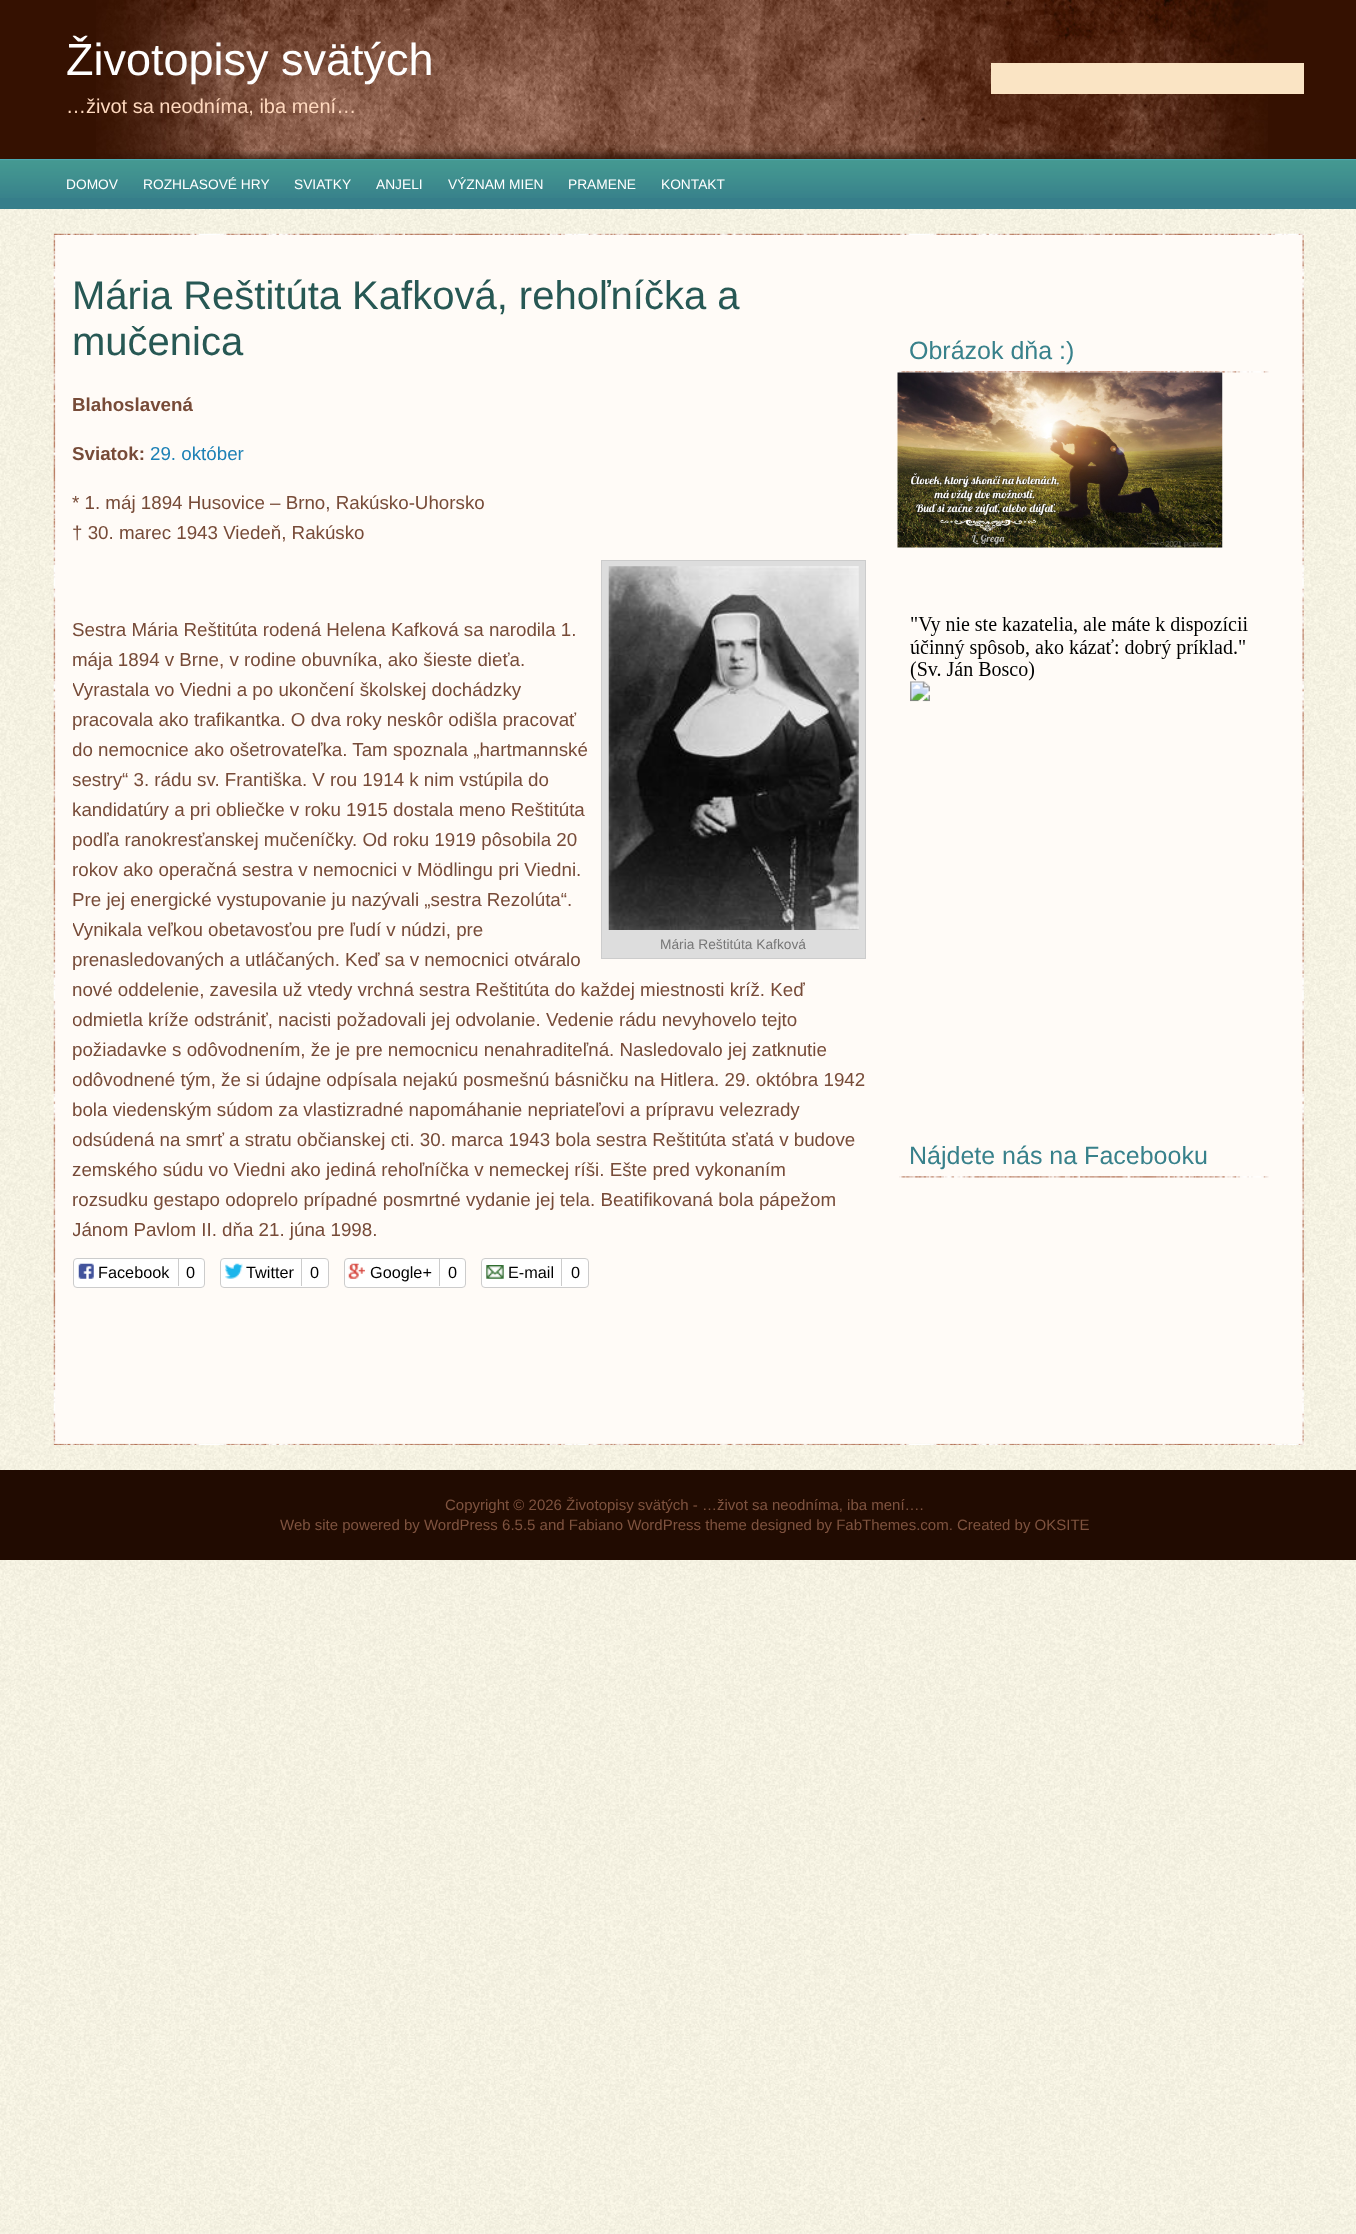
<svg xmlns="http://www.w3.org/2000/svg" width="1356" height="2234">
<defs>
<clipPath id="clip1"><rect x="73" y="260" width="793" height="1159"/></clipPath>
</defs>
<rect width="100%" height="100%" fill="#fff"/>
<image x="0" y="209" width="1356" height="2025" href="media/1.png"/>
<rect width="1356" height="159" fill="#351101"/>
<image x="96" y="0" width="1172" height="159" href="media/2.png"/>
<text x="66" y="75" style="font-family:Liberation Sans;font-size:45px;fill:#fff">Životopisy svätých</text>
<text x="66" y="113" style="font-family:Liberation Sans;font-size:20px;fill:#ffd9bf">…život sa neodníma, iba mení…</text>
<rect x="991" y="63" width="313" height="31" fill="#fae4c4"/>
<rect y="198" width="1356" height="11" fill="#367e8a"/>
<image x="0" y="159" width="1356" height="39" href="media/3.png"/>
<text x="66" y="189" style="font-family:Liberation Sans;font-size:13.75px;fill:#fff">DOMOV</text>
<text x="143" y="189" style="font-family:Liberation Sans;font-size:13.75px;fill:#fff">ROZHLASOVÉ HRY</text>
<text x="294" y="189" style="font-family:Liberation Sans;font-size:13.75px;fill:#fff">SVIATKY</text>
<text x="376" y="189" style="font-family:Liberation Sans;font-size:13.75px;fill:#fff">ANJELI</text>
<text x="448" y="189" style="font-family:Liberation Sans;font-size:13.75px;fill:#fff">VÝZNAM MIEN</text>
<text x="568" y="189" style="font-family:Liberation Sans;font-size:13.75px;fill:#fff">PRAMENE</text>
<text x="661" y="189" style="font-family:Liberation Sans;font-size:13.75px;fill:#fff">KONTAKT</text>
<image x="53" y="233" width="1251" height="2" href="media/4.png"/>
<image x="53" y="1443" width="1251" height="2" href="media/14.png"/>
<image x="53" y="235" width="1251" height="1209" href="media/5.png"/>
<text x="72" y="309" style="font-family:Liberation Sans;font-size:40px;fill:#275854">Mária Reštitúta Kafková, rehoľníčka a</text>
<text x="72" y="355" style="font-family:Liberation Sans;font-size:40px;fill:#275854">mučenica</text>
<text x="72" y="411" style="font-family:Liberation Sans;font-size:18.75px;font-weight:bold;fill:#774b38">Blahoslavená</text>
<text x="72" y="460" style="font-family:Liberation Sans;font-size:18.75px;font-weight:bold;fill:#774b38">Sviatok:</text>
<text x="150" y="460" style="font-family:Liberation Sans;font-size:18.75px;fill:#1d81b6">29. október</text>
<text x="72" y="509" style="font-family:Liberation Sans;font-size:18.75px;fill:#774b38">* 1. máj 1894 Husovice – Brno, Rakúsko-Uhorsko</text>
<text x="72" y="539" style="font-family:Liberation Sans;font-size:18.75px;fill:#774b38">† 30. marec 1943 Viedeň, Rakúsko</text>
<text x="72" y="636" style="font-family:Liberation Sans;font-size:18.75px;fill:#774b38">Sestra Mária Reštitúta rodená Helena Kafková sa narodila 1.</text>
<text x="72" y="666" style="font-family:Liberation Sans;font-size:18.75px;fill:#774b38">mája 1894 v Brne, v rodine obuvníka, ako šieste dieťa.</text>
<g clip-path="url(#clip1)">
<text x="72" y="696" style="font-family:Liberation Sans;font-size:18.75px;fill:#774b38">Vyrastala vo Viedni a po ukončení školskej dochádzky</text>
</g>
<text x="72" y="726" style="font-family:Liberation Sans;font-size:18.75px;fill:#774b38">pracovala ako trafikantka. O dva roky neskôr odišla pracovať</text>
<g clip-path="url(#clip1)">
<text x="72" y="756" style="font-family:Liberation Sans;font-size:18.75px;fill:#774b38">do nemocnice ako ošetrovateľka. Tam spoznala „hartmannské</text>
<text x="72" y="786" style="font-family:Liberation Sans;font-size:18.75px;fill:#774b38">sestry“ 3. rádu sv. Františka. V rou 1914 k nim vstúpila do</text>
</g>
<text x="72" y="816" style="font-family:Liberation Sans;font-size:18.75px;fill:#774b38">kandidatúry a pri obliečke v roku 1915 dostala meno Reštitúta</text>
<text x="72" y="846" style="font-family:Liberation Sans;font-size:18.75px;fill:#774b38">podľa ranokresťanskej mučeníčky. Od roku 1919 pôsobila 20</text>
<text x="72" y="876" style="font-family:Liberation Sans;font-size:18.75px;fill:#774b38">rokov ako operačná sestra v nemocnici v Mödlingu pri Viedni.</text>
<text x="72" y="906" style="font-family:Liberation Sans;font-size:18.75px;fill:#774b38">Pre jej energické vystupovanie ju nazývali „sestra Rezolúta“.</text>
<g clip-path="url(#clip1)">
<text x="72" y="936" style="font-family:Liberation Sans;font-size:18.75px;fill:#774b38">Vynikala veľkou obetavosťou pre ľudí v núdzi, pre</text>
</g>
<text x="72" y="966" style="font-family:Liberation Sans;font-size:18.75px;fill:#774b38">prenasledovaných a utláčaných. Keď sa v nemocnici otváralo</text>
<text x="72" y="996" style="font-family:Liberation Sans;font-size:18.75px;fill:#774b38">nové oddelenie, zavesila už vtedy vrchná sestra Reštitúta do každej miestnosti kríž. Keď</text>
<g clip-path="url(#clip1)">
<text x="72" y="1026" style="font-family:Liberation Sans;font-size:18.75px;fill:#774b38">odmietla kríže odstrániť, nacisti požadovali jej odvolanie. Vedenie rádu nevyhovelo tejto</text>
</g>
<text x="72" y="1056" style="font-family:Liberation Sans;font-size:18.75px;fill:#774b38">požiadavke s odôvodnením, že je pre nemocnicu nenahraditeľná. Nasledovalo jej zatknutie</text>
<g clip-path="url(#clip1)">
<text x="72" y="1086" style="font-family:Liberation Sans;font-size:18.75px;fill:#774b38">odôvodnené tým, že si údajne odpísala nejakú posmešnú básničku na Hitlera. 29. októbra 1942</text>
</g>
<text x="72" y="1116" style="font-family:Liberation Sans;font-size:18.75px;fill:#774b38">bola viedenským súdom za vlastizradné napomáhanie nepriateľovi a prípravu velezrady</text>
<g clip-path="url(#clip1)">
<text x="72" y="1146" style="font-family:Liberation Sans;font-size:18.75px;fill:#774b38">odsúdená na smrť a stratu občianskej cti. 30. marca 1943 bola sestra Reštitúta sťatá v budove</text>
</g>
<text x="72" y="1176" style="font-family:Liberation Sans;font-size:18.75px;fill:#774b38">zemského súdu vo Viedni ako jediná rehoľníčka v nemeckej ríši. Ešte pred vykonaním</text>
<text x="72" y="1206" style="font-family:Liberation Sans;font-size:18.75px;fill:#774b38">rozsudku gestapo odoprelo prípadné posmrtné vydanie jej tela. Beatifikovaná bola pápežom</text>
<g clip-path="url(#clip1)">
<text x="72" y="1236" style="font-family:Liberation Sans;font-size:18.75px;fill:#774b38">Jánom Pavlom II. dňa 21. júna 1998.</text>
</g>
<rect x="601.5" y="560.5" width="264" height="398" fill="#ddd" stroke="#ccc"/>
<image x="608" y="566" width="251" height="364" href="media/6.png"/>
<text x="660" y="949" style="font-family:Liberation Sans;font-size:13.75px;fill:#777">Mária Reštitúta Kafková</text>
<rect x="73.5" y="1258.5" width="131" height="29" rx="3.5" fill="#fff" stroke="#ccc"/>
<image x="78" y="1263" width="16" height="16" href="media/7.png"/>
<text x="98" y="1278" style="font-family:Liberation Sans;font-size:16.25px;fill:#000">Facebook</text>
<rect x="178" y="1259" width="1" height="27" fill="#ccc"/>
<text x="186" y="1278" style="font-family:Liberation Sans;font-size:16.25px;fill:#000">0</text>
<rect x="220.5" y="1258.5" width="108" height="29" rx="3.5" fill="#fff" stroke="#ccc"/>
<image x="225" y="1263" width="18" height="16" href="media/8.png"/>
<text x="246" y="1278" style="font-family:Liberation Sans;font-size:16.25px;fill:#000">Twitter</text>
<rect x="301" y="1259" width="1" height="27" fill="#ccc"/>
<text x="310" y="1278" style="font-family:Liberation Sans;font-size:16.25px;fill:#000">0</text>
<rect x="344.5" y="1258.5" width="121" height="29" rx="3.5" fill="#fff" stroke="#ccc"/>
<image x="348" y="1263" width="17" height="16" href="media/9.png"/>
<text x="370" y="1278" style="font-family:Liberation Sans;font-size:16.25px;fill:#000">Google+</text>
<rect x="439" y="1259" width="1" height="27" fill="#ccc"/>
<text x="448" y="1278" style="font-family:Liberation Sans;font-size:16.25px;fill:#000">0</text>
<rect x="481.5" y="1258.5" width="107" height="29" rx="3.5" fill="#fff" stroke="#ccc"/>
<image x="486" y="1265" width="18" height="14" href="media/10.png"/>
<text x="508" y="1278" style="font-family:Liberation Sans;font-size:16.25px;fill:#000">E-mail</text>
<rect x="561" y="1259" width="1" height="27" fill="#ccc"/>
<text x="571" y="1278" style="font-family:Liberation Sans;font-size:16.25px;fill:#000">0</text>
<image x="899" y="371" width="370" height="2" href="media/11.png"/>
<text x="909" y="359" style="font-family:Liberation Sans;font-size:25px;fill:#38818b">Obrázok dňa :)</text>
<image x="897" y="372" width="326" height="176" href="media/12.png"/>
<image x="910" y="617" width="338" height="85" href="media/13.png"/>
<image x="899" y="1176" width="370" height="2" href="media/11.png"/>
<text x="909" y="1164" style="font-family:Liberation Sans;font-size:25px;fill:#38818b">Nájdete nás na Facebooku</text>
<rect y="1470" width="1356" height="90" fill="#210b01"/>
<text x="445" y="1510" style="font-family:Liberation Sans;font-size:15px;fill:#7f533f">Copyright © 2026 Životopisy svätých - …život sa neodníma, iba mení….</text>
<text x="280" y="1530" style="font-family:Liberation Sans;font-size:15px;fill:#7f533f">Web site powered by WordPress 6.5.5 and Fabiano WordPress theme designed by FabThemes.com. Created by OKSITE</text>
</svg>
